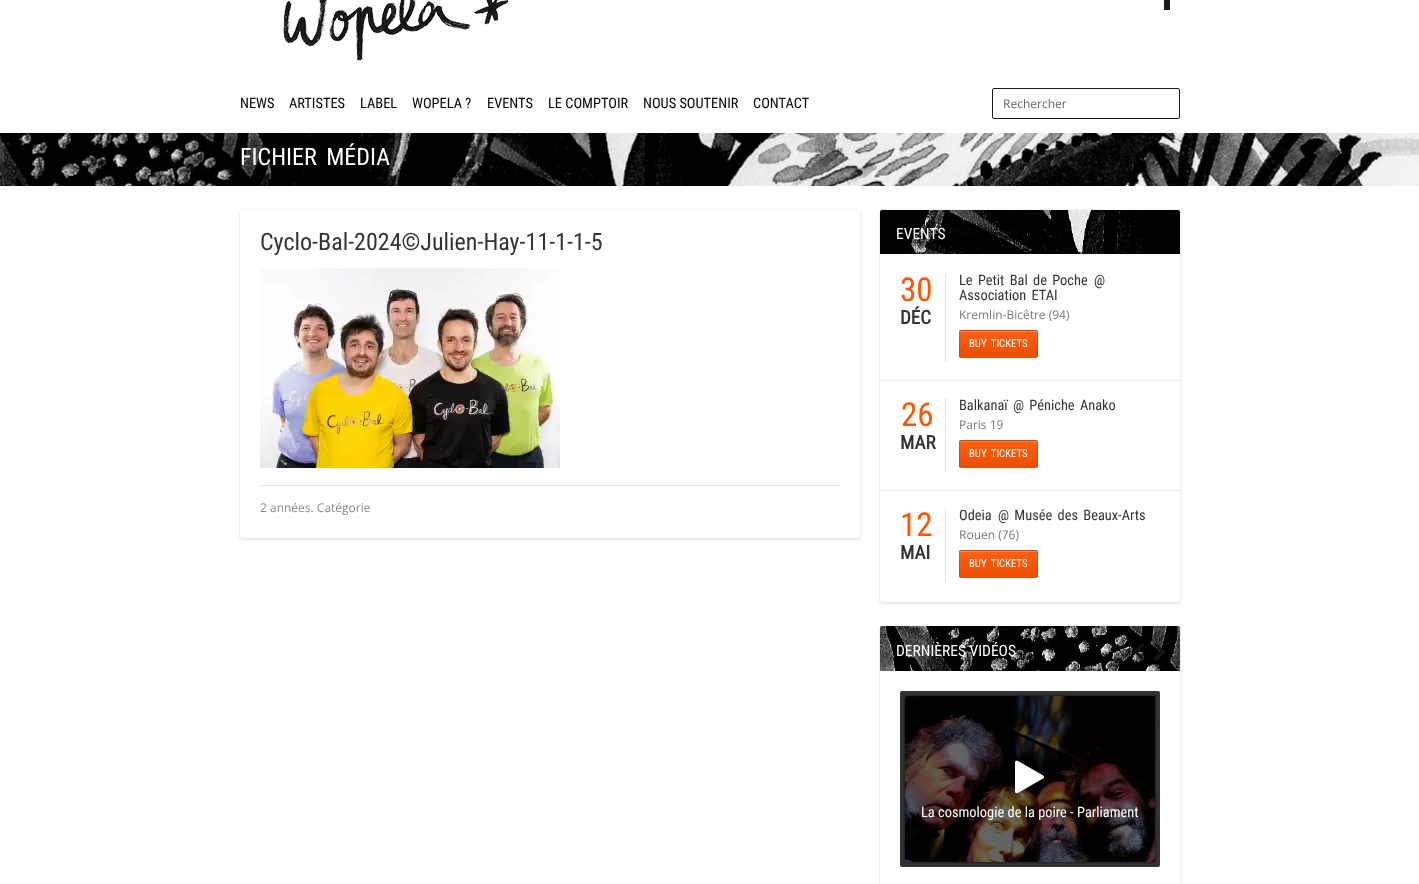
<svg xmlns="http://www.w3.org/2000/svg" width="1419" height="884">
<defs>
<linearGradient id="g1" gradientUnits="userSpaceOnUse" x1="960" y1="331" x2="960" y2="305"><stop offset="0" stop-color="#000" stop-opacity="0.08"/><stop offset="0.5" stop-color="#808080" stop-opacity="0.08"/><stop offset="1" stop-color="#fff" stop-opacity="0.08"/></linearGradient>
<linearGradient id="g2" gradientUnits="userSpaceOnUse" x1="960" y1="357" x2="960" y2="331"><stop offset="0" stop-color="#000" stop-opacity="0.08"/><stop offset="0.5" stop-color="#808080" stop-opacity="0.08"/><stop offset="1" stop-color="#fff" stop-opacity="0.08"/></linearGradient>
<linearGradient id="g3" gradientUnits="userSpaceOnUse" x1="960" y1="383" x2="960" y2="357"><stop offset="0" stop-color="#000" stop-opacity="0.08"/><stop offset="0.5" stop-color="#808080" stop-opacity="0.08"/><stop offset="1" stop-color="#fff" stop-opacity="0.08"/></linearGradient>
<linearGradient id="g4" gradientUnits="userSpaceOnUse" x1="960" y1="441" x2="960" y2="415"><stop offset="0" stop-color="#000" stop-opacity="0.08"/><stop offset="0.5" stop-color="#808080" stop-opacity="0.08"/><stop offset="1" stop-color="#fff" stop-opacity="0.08"/></linearGradient>
<linearGradient id="g5" gradientUnits="userSpaceOnUse" x1="960" y1="467" x2="960" y2="441"><stop offset="0" stop-color="#000" stop-opacity="0.08"/><stop offset="0.5" stop-color="#808080" stop-opacity="0.08"/><stop offset="1" stop-color="#fff" stop-opacity="0.08"/></linearGradient>
<linearGradient id="g6" gradientUnits="userSpaceOnUse" x1="960" y1="493" x2="960" y2="467"><stop offset="0" stop-color="#000" stop-opacity="0.08"/><stop offset="0.5" stop-color="#808080" stop-opacity="0.08"/><stop offset="1" stop-color="#fff" stop-opacity="0.08"/></linearGradient>
<linearGradient id="g7" gradientUnits="userSpaceOnUse" x1="960" y1="551" x2="960" y2="525"><stop offset="0" stop-color="#000" stop-opacity="0.08"/><stop offset="0.5" stop-color="#808080" stop-opacity="0.08"/><stop offset="1" stop-color="#fff" stop-opacity="0.08"/></linearGradient>
<linearGradient id="g8" gradientUnits="userSpaceOnUse" x1="960" y1="577" x2="960" y2="551"><stop offset="0" stop-color="#000" stop-opacity="0.08"/><stop offset="0.5" stop-color="#808080" stop-opacity="0.08"/><stop offset="1" stop-color="#fff" stop-opacity="0.08"/></linearGradient>
<linearGradient id="g9" gradientUnits="userSpaceOnUse" x1="960" y1="603" x2="960" y2="577"><stop offset="0" stop-color="#000" stop-opacity="0.08"/><stop offset="0.5" stop-color="#808080" stop-opacity="0.08"/><stop offset="1" stop-color="#fff" stop-opacity="0.08"/></linearGradient>
<clipPath id="clip1"><path d="M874 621h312v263h-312zm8 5h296c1 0 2 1 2 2v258c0 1-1 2-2 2h-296c-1 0-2-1-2-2v-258c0-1 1-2 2-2z" clip-rule="evenodd"/></clipPath>
</defs>
<rect width="100%" height="100%" fill="#fff"/>
<image x="283" y="0" width="226" height="61" href="media/1.png"/>
<rect x="1164" width="6" height="10" fill="#1c1c1c"/>
<text x="240" y="108" style="font-family:Roboto Condensed;font-size:14.4px;fill:#000">NEWS</text>
<text x="289" y="108" style="font-family:Roboto Condensed;font-size:14.4px;fill:#000">ARTISTES</text>
<text x="360" y="108" style="font-family:Roboto Condensed;font-size:14.4px;fill:#000">LABEL</text>
<text x="412" y="108" style="font-family:Roboto Condensed;font-size:14.4px;fill:#000">WOPELA ?</text>
<text x="487" y="108" style="font-family:Roboto Condensed;font-size:14.4px;fill:#000">EVENTS</text>
<text x="548" y="108" style="font-family:Roboto Condensed;font-size:14.4px;fill:#000">LE COMPTOIR</text>
<text x="643" y="108" style="font-family:Roboto Condensed;font-size:14.4px;fill:#000">NOUS SOUTENIR</text>
<text x="753" y="108" style="font-family:Roboto Condensed;font-size:14.4px;fill:#000">CONTACT</text>
<rect x="992.5" y="88.5" width="187" height="30" rx="1.5" fill="none" stroke="#1b1b1b"/>
<text x="1003" y="108" style="font-family:Open Sans;font-size:12px;fill:#666">Rechercher</text>
<image x="0" y="133" width="1419" height="53" href="media/2.png"/>
<text x="240" y="165" word-spacing="4" style="font-family:Roboto Condensed;font-size:24px;fill:#fff">FICHIER MÉDIA</text>
<rect x="240" y="211" width="620" height="328" rx="2" fill="#00000026" filter="blur(1.5px)"/>
<rect x="240" y="210" width="620" height="328" rx="2" fill="#fff"/>
<text x="260" y="250" style="font-family:Roboto Condensed;font-size:24px;fill:#333">Cyclo-Bal-2024©Julien-Hay-11-1-1-5</text>
<image x="260" y="268" width="300" height="200" href="media/3.png"/>
<path d="M260 485.5h580" fill="none" stroke="#d2d2d2" stroke-dasharray="1 1"/>
<text x="260" y="512" style="font-family:Open Sans;font-size:12px;fill:#888">2 années. Catégorie</text>
<rect x="880" y="211" width="300" height="392" rx="2" fill="#00000026" filter="blur(1.5px)"/>
<rect x="880" y="210" width="300" height="392" rx="2" fill="#fff"/>
<image x="880" y="210" width="300" height="44" href="media/4.png"/>
<text x="896" y="239" style="font-family:Roboto Condensed;font-size:15.5px;fill:#fff">EVENTS</text>
<rect x="880" y="380" width="300" height="1" fill="#ebebeb"/>
<text x="900" y="301" style="font-family:Roboto Condensed;font-size:33px;fill:#ff5400">30</text>
<text x="900" y="324" style="font-family:Roboto Condensed;font-size:19px;font-weight:bold;fill:#333">DÉC</text>
<path d="M945.5 274v88" fill="none" stroke="#d2d2d2" stroke-dasharray="1 1"/>
<text x="959" y="285" word-spacing="2" style="font-family:Roboto Condensed;font-size:14.4px;fill:#333">Le Petit Bal de Poche</text>
<text x="1094" y="285" style="font-family:Roboto Condensed;font-size:14.4px;fill:#333">@</text>
<text x="959" y="300" word-spacing="2" style="font-family:Roboto Condensed;font-size:14.4px;fill:#333">Association ETAI</text>
<text x="959" y="319" style="font-family:Open Sans;font-size:12px;fill:#777">Kremlin-Bicêtre (94)</text>
<rect x="959" y="330" width="79" height="28" rx="2" fill="#ff5400"/>
<rect x="959" y="330" width="79" height="1" fill="url(#g1)"/>
<rect x="959" y="331" width="79" height="26" fill="url(#g2)"/>
<rect x="959" y="357" width="79" height="1" fill="url(#g3)"/>
<rect x="959.5" y="330.5" width="78" height="27" rx="1.5" fill="none" stroke="#0000001a"/>
<rect x="960" y="331" width="77" height="1" fill="#ffffff3d"/>
<text x="969" y="347" word-spacing="2" style="font-family:Roboto Condensed;font-size:10.75px;fill:#fff">BUY TICKETS</text>
<rect x="880" y="490" width="300" height="1" fill="#ebebeb"/>
<text x="901" y="426" style="font-family:Roboto Condensed;font-size:33px;fill:#ff5400">26</text>
<text x="900" y="449" style="font-family:Roboto Condensed;font-size:19px;font-weight:bold;fill:#333">MAR</text>
<path d="M945.5 399v73" fill="none" stroke="#d2d2d2" stroke-dasharray="1 1"/>
<text x="959" y="410" style="font-family:Roboto Condensed;font-size:14.4px;fill:#333">Balkanaï</text>
<text x="1013" y="410" word-spacing="2" style="font-family:Roboto Condensed;font-size:14.4px;fill:#333">@ Péniche Anako</text>
<text x="959" y="429" style="font-family:Open Sans;font-size:12px;fill:#777">Paris 19</text>
<rect x="959" y="440" width="79" height="28" rx="2" fill="#ff5400"/>
<rect x="959" y="440" width="79" height="1" fill="url(#g4)"/>
<rect x="959" y="441" width="79" height="26" fill="url(#g5)"/>
<rect x="959" y="467" width="79" height="1" fill="url(#g6)"/>
<rect x="959.5" y="440.5" width="78" height="27" rx="1.5" fill="none" stroke="#0000001a"/>
<rect x="960" y="441" width="77" height="1" fill="#ffffff3d"/>
<text x="969" y="457" word-spacing="2" style="font-family:Roboto Condensed;font-size:10.75px;fill:#fff">BUY TICKETS</text>
<text x="900" y="536" style="font-family:Roboto Condensed;font-size:33px;fill:#ff5400">12</text>
<text x="900" y="559" style="font-family:Roboto Condensed;font-size:19px;font-weight:bold;fill:#333">MAI</text>
<path d="M945.5 509v73" fill="none" stroke="#d2d2d2" stroke-dasharray="1 1"/>
<text x="959" y="520" style="font-family:Roboto Condensed;font-size:14.4px;fill:#333">Odeia</text>
<text x="998" y="520" word-spacing="2" style="font-family:Roboto Condensed;font-size:14.4px;fill:#333">@ Musée des Beaux-Arts</text>
<text x="959" y="539" style="font-family:Open Sans;font-size:12px;fill:#777">Rouen (76)</text>
<rect x="959" y="550" width="79" height="28" rx="2" fill="#ff5400"/>
<rect x="959" y="550" width="79" height="1" fill="url(#g7)"/>
<rect x="959" y="551" width="79" height="26" fill="url(#g8)"/>
<rect x="959" y="577" width="79" height="1" fill="url(#g9)"/>
<rect x="959.5" y="550.5" width="78" height="27" rx="1.5" fill="none" stroke="#0000001a"/>
<rect x="960" y="551" width="77" height="1" fill="#ffffff3d"/>
<text x="969" y="567" word-spacing="2" style="font-family:Roboto Condensed;font-size:10.75px;fill:#fff">BUY TICKETS</text>
<g clip-path="url(#clip1)">
<rect x="880" y="627" width="300" height="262" rx="2" fill="#00000026" filter="blur(1.5px)"/>
</g>
<image x="880" y="626" width="300" height="45" href="media/5.png"/>
<text x="896" y="656" style="font-family:Roboto Condensed;font-size:15.5px;fill:#fff">DERNIÈRES VIDÉOS</text>
<image x="1133" y="643" width="11" height="18" href="media/6.png"/>
<image x="1154" y="643" width="11" height="18" href="media/7.png"/>
<rect x="900" y="691" width="260" height="176" rx="2" fill="#333"/>
<rect x="905" y="696" width="250" height="166" fill="#0e0e0e" filter="blur(1.5px)"/>
<image x="905" y="696" width="250" height="166" href="media/8.png"/>
<image x="1015" y="760" width="29" height="34" href="media/9.png"/>
<text x="921" y="817" style="font-family:Roboto Condensed;font-size:14.4px;fill:#fff">La cosmologie de la poire - Parliament</text>
</svg>
